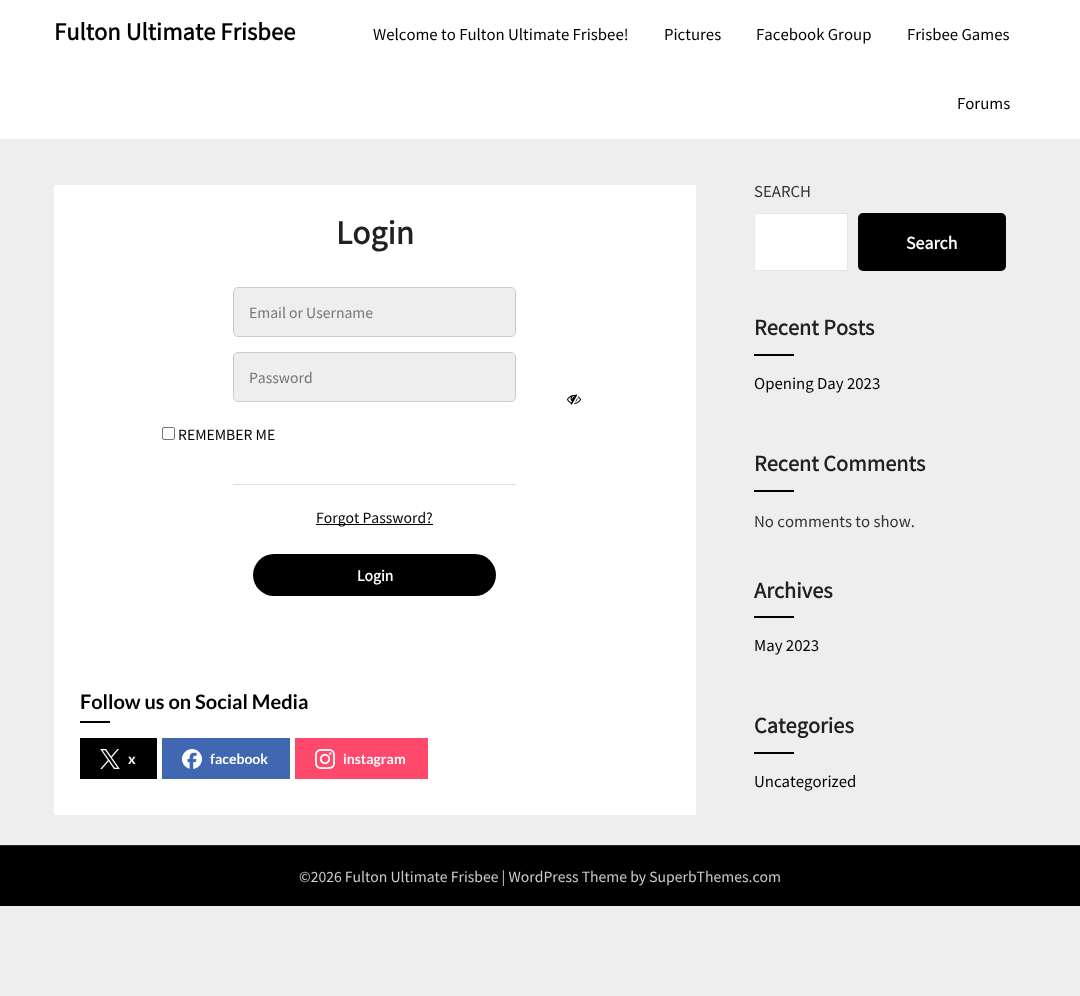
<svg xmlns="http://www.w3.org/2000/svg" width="1080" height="996">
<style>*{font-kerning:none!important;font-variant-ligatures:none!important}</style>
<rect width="100%" height="100%" fill="#eee"/>
<rect width="1080" height="139" fill="#fff"/>
<text x="54" y="40" style="font-family:Noto Sans JP;font-size:22px;font-weight:bold;fill:#000">Fulton Ultimate Frisbee</text>
<text x="373" y="40" style="font-family:Noto Sans JP;font-size:15px;font-weight:100;fill:#000">Welcome to Fulton Ultimate Frisbee!</text>
<text x="664" y="40" style="font-family:Noto Sans JP;font-size:15px;font-weight:100;fill:#000">Pictures</text>
<text x="756" y="40" style="font-family:Noto Sans JP;font-size:15px;font-weight:100;fill:#000">Facebook Group</text>
<text x="907" y="40" style="font-family:Noto Sans JP;font-size:15px;font-weight:100;fill:#000">Frisbee Games</text>
<text x="957" y="109" style="font-family:Noto Sans JP;font-size:15px;font-weight:100;fill:#000">Forums</text>
<rect x="54" y="185" width="642" height="630" rx="1" fill="#fff"/>
<text x="336" y="244" style="font-family:Noto Sans JP;font-size:30px;font-weight:bold;fill:#212121">Login</text>
<rect x="233.5" y="287.5" width="282" height="49" rx="4.5" fill="#eee" stroke="#ccc"/>
<text x="249" y="318" style="font-family:Noto Sans JP;font-size:14px;font-weight:100;fill:#757575">Email or Username</text>
<rect x="233.5" y="352.5" width="282" height="49" rx="4.5" fill="#eee" stroke="#ccc"/>
<text x="249" y="383" style="font-family:Noto Sans JP;font-size:14px;font-weight:100;fill:#757575">Password</text>
<image x="567" y="394" width="14" height="11" href="media/1.png"/>
<rect x="162.5" y="427.5" width="12" height="12" rx="1.5" fill="none" stroke="#767676"/>
<text x="178" y="440" style="font-family:Noto Sans JP;font-size:14px;font-weight:100;fill:#000">REMEMBER ME</text>
<rect x="233" y="484" width="283" height="1" fill="#e1e1e1"/>
<rect x="316" y="524" width="117" height="1" fill="#000"/>
<text x="316" y="523" style="font-family:Noto Sans JP;font-size:14px;font-weight:100;fill:#000">Forgot Password?</text>
<rect x="253" y="554" width="243" height="42" rx="21" fill="#000"/>
<text x="357" y="581" style="font-family:Noto Sans JP;font-size:14px;font-weight:bold;fill:#fff">Login</text>
<text x="80" y="709" style="font-family:Lato;font-size:20px;font-weight:bold;fill:#000">Follow us on Social Media</text>
<rect x="80" y="721" width="30" height="2" fill="#000"/>
<rect x="80" y="738" width="77" height="41" fill="#000"/>
<image x="100" y="749" width="20" height="20" href="media/2.png"/>
<text x="128" y="764" style="font-family:Lato;font-size:14px;font-weight:bold;fill:#fff">x</text>
<rect x="162" y="738" width="128" height="41" fill="#4267b2"/>
<image x="182" y="749" width="20" height="20" href="media/3.png"/>
<text x="210" y="764" style="font-family:Lato;font-size:14px;font-weight:bold;fill:#fff">facebook</text>
<rect x="295" y="738" width="133" height="41" fill="#ff496c"/>
<image x="315" y="749" width="20" height="20" href="media/4.png"/>
<text x="343" y="764" style="font-family:Lato;font-size:14px;font-weight:bold;fill:#fff">instagram</text>
<text x="754" y="197" style="font-family:Noto Sans JP;font-size:15px;font-weight:100;fill:#333">SEARCH</text>
<rect x="754.5" y="213.5" width="93" height="57" fill="#fff" stroke="#e5e6e9"/>
<rect x="858" y="213" width="148" height="58" rx="5" fill="#000"/>
<text x="906" y="249" style="font-family:Noto Sans JP;font-size:16px;font-weight:bold;fill:#fff">Search</text>
<text x="754" y="335" style="font-family:Noto Sans JP;font-size:20px;font-weight:bold;fill:#212121">Recent Posts</text>
<rect x="754" y="354" width="40" height="2" fill="#000"/>
<text x="754" y="389" style="font-family:Noto Sans JP;font-size:15px;font-weight:100;fill:#000">Opening Day 2023</text>
<text x="754" y="471" style="font-family:Noto Sans JP;font-size:20px;font-weight:bold;fill:#212121">Recent Comments</text>
<rect x="754" y="490" width="40" height="2" fill="#000"/>
<text x="754" y="527" style="font-family:Noto Sans JP;font-size:15px;font-weight:100;fill:#333">No comments to show.</text>
<text x="754" y="598" style="font-family:Noto Sans JP;font-size:20px;font-weight:bold;fill:#212121">Archives</text>
<rect x="754" y="616" width="40" height="2" fill="#000"/>
<text x="754" y="651" style="font-family:Noto Sans JP;font-size:15px;font-weight:100;fill:#000">May 2023</text>
<text x="754" y="733" style="font-family:Noto Sans JP;font-size:20px;font-weight:bold;fill:#212121">Categories</text>
<rect x="754" y="752" width="40" height="2" fill="#000"/>
<text x="754" y="787" style="font-family:Noto Sans JP;font-size:15px;font-weight:100;fill:#000">Uncategorized</text>
<rect y="846" width="1080" height="60" fill="#000"/>
<rect y="845" width="1080" height="1" fill="#292929"/>
<text x="299" y="882" style="font-family:Noto Sans JP;font-size:14px;font-weight:100;fill:#ccc">©2026 Fulton Ultimate Frisbee | WordPress Theme by SuperbThemes.com</text>
</svg>
